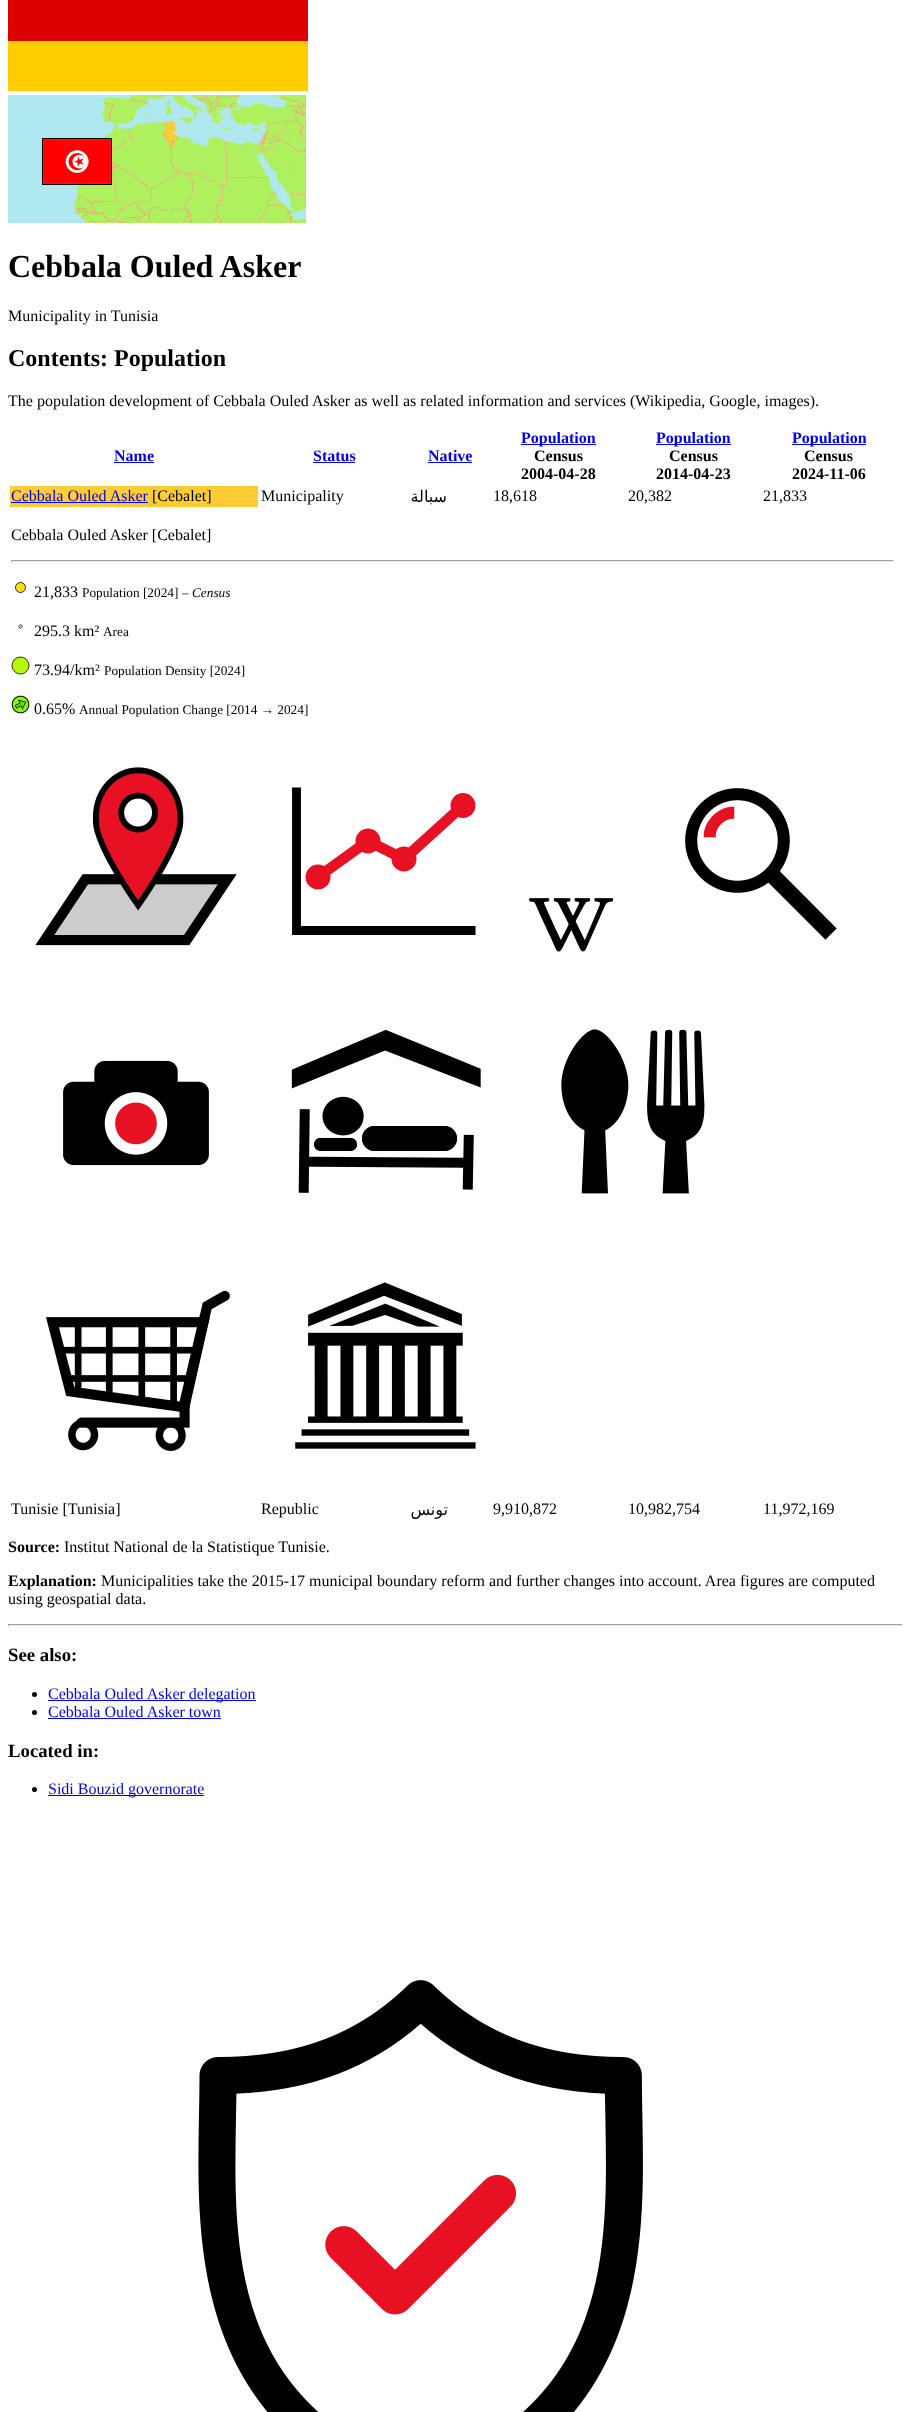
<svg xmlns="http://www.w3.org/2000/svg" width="911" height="2412">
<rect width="100%" height="100%" fill="#fff"/>
<rect x="8" width="300" height="41" fill="#d00"/>
<rect x="8" y="41" width="300" height="50" fill="#ffce00"/>
<image x="8" y="95" width="298" height="128" href="media/1.png"/>
<text x="8" y="277" style="font-family:Liberation Serif;font-size:32px;font-weight:bold;fill:#000">Cebbala Ouled Asker</text>
<text x="8" y="321" style="font-family:Liberation Serif;font-size:16px;fill:#000">Municipality in Tunisia</text>
<text x="8" y="366" style="font-family:Liberation Serif;font-size:24px;font-weight:bold;fill:#000">Contents: Population</text>
<text x="8" y="406" style="font-family:Liberation Serif;font-size:16px;fill:#000">The population development of Cebbala Ouled Asker as well as related information and services (Wikipedia, Google, images).</text>
<text x="114" y="461" style="font-family:Liberation Serif;font-size:16px;font-weight:bold;fill:#00e">Name</text>
<rect x="114" y="462" width="40" height="1" fill="#00e"/>
<text x="313" y="461" style="font-family:Liberation Serif;font-size:16px;font-weight:bold;fill:#00e">Status</text>
<rect x="313" y="462" width="42" height="1" fill="#00e"/>
<text x="428" y="461" style="font-family:Liberation Serif;font-size:16px;font-weight:bold;fill:#00e">Native</text>
<rect x="428" y="462" width="44" height="1" fill="#00e"/>
<rect x="521" y="444" width="75" height="1" fill="#00e"/>
<text x="521" y="443" style="font-family:Liberation Serif;font-size:16px;font-weight:bold;fill:#00e">Population</text>
<text x="534" y="461" style="font-family:Liberation Serif;font-size:16px;font-weight:bold;fill:#000">Census</text>
<text x="521" y="479" style="font-family:Liberation Serif;font-size:16px;font-weight:bold;fill:#000">2004-04-28</text>
<rect x="656" y="444" width="75" height="1" fill="#00e"/>
<text x="656" y="443" style="font-family:Liberation Serif;font-size:16px;font-weight:bold;fill:#00e">Population</text>
<text x="669" y="461" style="font-family:Liberation Serif;font-size:16px;font-weight:bold;fill:#000">Census</text>
<text x="656" y="479" style="font-family:Liberation Serif;font-size:16px;font-weight:bold;fill:#000">2014-04-23</text>
<rect x="792" y="444" width="74" height="1" fill="#00e"/>
<text x="792" y="443" style="font-family:Liberation Serif;font-size:16px;font-weight:bold;fill:#00e">Population</text>
<text x="804" y="461" style="font-family:Liberation Serif;font-size:16px;font-weight:bold;fill:#000">Census</text>
<text x="792" y="479" style="font-family:Liberation Serif;font-size:16px;font-weight:bold;fill:#000">2024-11-06</text>
<rect x="10" y="486" width="248" height="21" fill="#fc3"/>
<text x="11" y="501" style="font-family:Liberation Serif;font-size:16px;fill:#00e">Cebbala Ouled Asker</text>
<rect x="11" y="502" width="137" height="1" fill="#00e"/>
<text x="152" y="501" style="font-family:Liberation Serif;font-size:16px;fill:#000">[Cebalet]</text>
<text x="261" y="501" style="font-family:Liberation Serif;font-size:16px;fill:#000">Municipality</text>
<text x="447" y="502" style="font-family:DejaVu Sans;font-size:16px;direction:rtl;fill:#000">سبالة</text>
<text x="493" y="501" style="font-family:Liberation Serif;font-size:16px;fill:#000">18,618</text>
<text x="628" y="501" style="font-family:Liberation Serif;font-size:16px;fill:#000">20,382</text>
<text x="763" y="501" style="font-family:Liberation Serif;font-size:16px;fill:#000">21,833</text>
<text x="11" y="540" style="font-family:Liberation Serif;font-size:16px;fill:#000">Cebbala Ouled Asker [Cebalet]</text>
<rect x="11" y="560" width="883" height="1" fill="#9f9f9f"/>
<rect x="893" y="560" width="1" height="2" fill="#eee"/>
<rect x="11" y="561" width="883" height="1" fill="#eee"/>
<rect x="11" y="560" width="1" height="2" fill="#9f9f9f"/>
<circle cx="20.5" cy="587.5" r="5" fill="#ffdd10" stroke="#000" stroke-width="0.8"/>
<text x="34" y="597" style="font-family:Liberation Serif;font-size:16px;fill:#000">21,833</text>
<text x="82" y="597" style="font-family:Liberation Serif;font-size:13.3px;fill:#000">Population [2024]</text>
<text x="182" y="597" style="font-family:Liberation Serif;font-size:13.3px;font-style:italic;fill:#000">– Census</text>
<circle cx="20.5" cy="626.5" r="1.6" fill="none" stroke="#000" stroke-width="0.8"/>
<text x="34" y="636" style="font-family:Liberation Serif;font-size:16px;fill:#000">295.3 km²</text>
<text x="103" y="636" style="font-family:Liberation Serif;font-size:13.3px;fill:#000">Area</text>
<circle cx="20.5" cy="665.5" r="8.5" fill="#b3f900" stroke="#000" stroke-width="0.8"/>
<text x="34" y="675" style="font-family:Liberation Serif;font-size:16px;fill:#000">73.94/km²</text>
<text x="104" y="675" style="font-family:Liberation Serif;font-size:13.3px;fill:#000">Population Density [2024]</text>
<image x="11" y="695" width="19" height="19" href="media/2.png"/>
<text x="34" y="714" style="font-family:Liberation Serif;font-size:16px;fill:#000">0.65%</text>
<text x="79" y="714" style="font-family:Liberation Serif;font-size:13.3px;fill:#000">Annual Population Change [2014 → 2024]</text>
<image x="35" y="767" width="202" height="179" href="media/3.png"/>
<path d="M296.5 787.5v143h179" fill="none" stroke="#000" stroke-width="8.9"/>
<image x="685" y="788" width="152" height="152" href="media/4.png"/>
<path d="M318 877l50-36l36 18l59-53.5" fill="none" stroke="#e81123" stroke-width="10.7"/>
<circle cx="463" cy="805.5" r="12.5" fill="#e81123"/>
<circle cx="368" cy="841" r="12.5" fill="#e81123"/>
<circle cx="404" cy="859" r="12.5" fill="#e81123"/>
<circle cx="318" cy="877" r="12.5" fill="#e81123"/>
<image x="529" y="898" width="84" height="54" href="media/5.png"/>
<image x="63" y="1060" width="146" height="106" href="media/6.png"/>
<image x="291" y="1029" width="190" height="164" href="media/7.png"/>
<image x="561" y="1029" width="144" height="165" href="media/8.png"/>
<image x="46" y="1290" width="184" height="161" href="media/9.png"/>
<image x="295" y="1282" width="181" height="167" href="media/10.png"/>
<text x="11" y="1514" style="font-family:Liberation Serif;font-size:16px;fill:#000">Tunisie [Tunisia]</text>
<text x="261" y="1514" style="font-family:Liberation Serif;font-size:16px;fill:#000">Republic</text>
<text x="448" y="1515" style="font-family:DejaVu Sans;font-size:16px;direction:rtl;fill:#000">تونس</text>
<text x="493" y="1514" style="font-family:Liberation Serif;font-size:16px;fill:#000">9,910,872</text>
<text x="628" y="1514" style="font-family:Liberation Serif;font-size:16px;fill:#000">10,982,754</text>
<text x="763" y="1514" style="font-family:Liberation Serif;font-size:16px;fill:#000">11,972,169</text>
<text x="8" y="1552" style="font-family:Liberation Serif;font-size:16px;font-weight:bold;fill:#000">Source:</text>
<text x="64" y="1552" style="font-family:Liberation Serif;font-size:16px;fill:#000">Institut National de la Statistique Tunisie.</text>
<text x="8" y="1586" style="font-family:Liberation Serif;font-size:16px;font-weight:bold;fill:#000">Explanation:</text>
<text x="101" y="1586" style="font-family:Liberation Serif;font-size:16px;fill:#000">Municipalities take the 2015-17 municipal boundary reform and further changes into account. Area figures are computed</text>
<text x="8" y="1604" style="font-family:Liberation Serif;font-size:16px;fill:#000">using geospatial data.</text>
<rect x="8" y="1624" width="895" height="1" fill="#9f9f9f"/>
<rect x="902" y="1624" width="1" height="2" fill="#eee"/>
<rect x="8" y="1625" width="895" height="1" fill="#eee"/>
<rect x="8" y="1624" width="1" height="2" fill="#9f9f9f"/>
<text x="8" y="1661" style="font-family:Liberation Serif;font-size:18.75px;font-weight:bold;fill:#000">See also:</text>
<circle cx="34.5" cy="1694.5" r="2.5" fill="#000"/>
<rect x="48" y="1700" width="208" height="1" fill="#00e"/>
<text x="48" y="1699" style="font-family:Liberation Serif;font-size:16px;fill:#00e">Cebbala Ouled Asker delegation</text>
<circle cx="34.5" cy="1712.5" r="2.5" fill="#000"/>
<text x="48" y="1717" style="font-family:Liberation Serif;font-size:16px;fill:#00e">Cebbala Ouled Asker town</text>
<rect x="48" y="1718" width="173" height="1" fill="#00e"/>
<text x="8" y="1757" style="font-family:Liberation Serif;font-size:18.75px;font-weight:bold;fill:#000">Located in:</text>
<circle cx="34.5" cy="1789.5" r="2.5" fill="#000"/>
<rect x="48" y="1795" width="156" height="1" fill="#00e"/>
<text x="48" y="1794" style="font-family:Liberation Serif;font-size:16px;fill:#00e">Sidi Bouzid governorate</text>
<image x="198" y="1980" width="445" height="432" href="media/11.png"/>
</svg>
